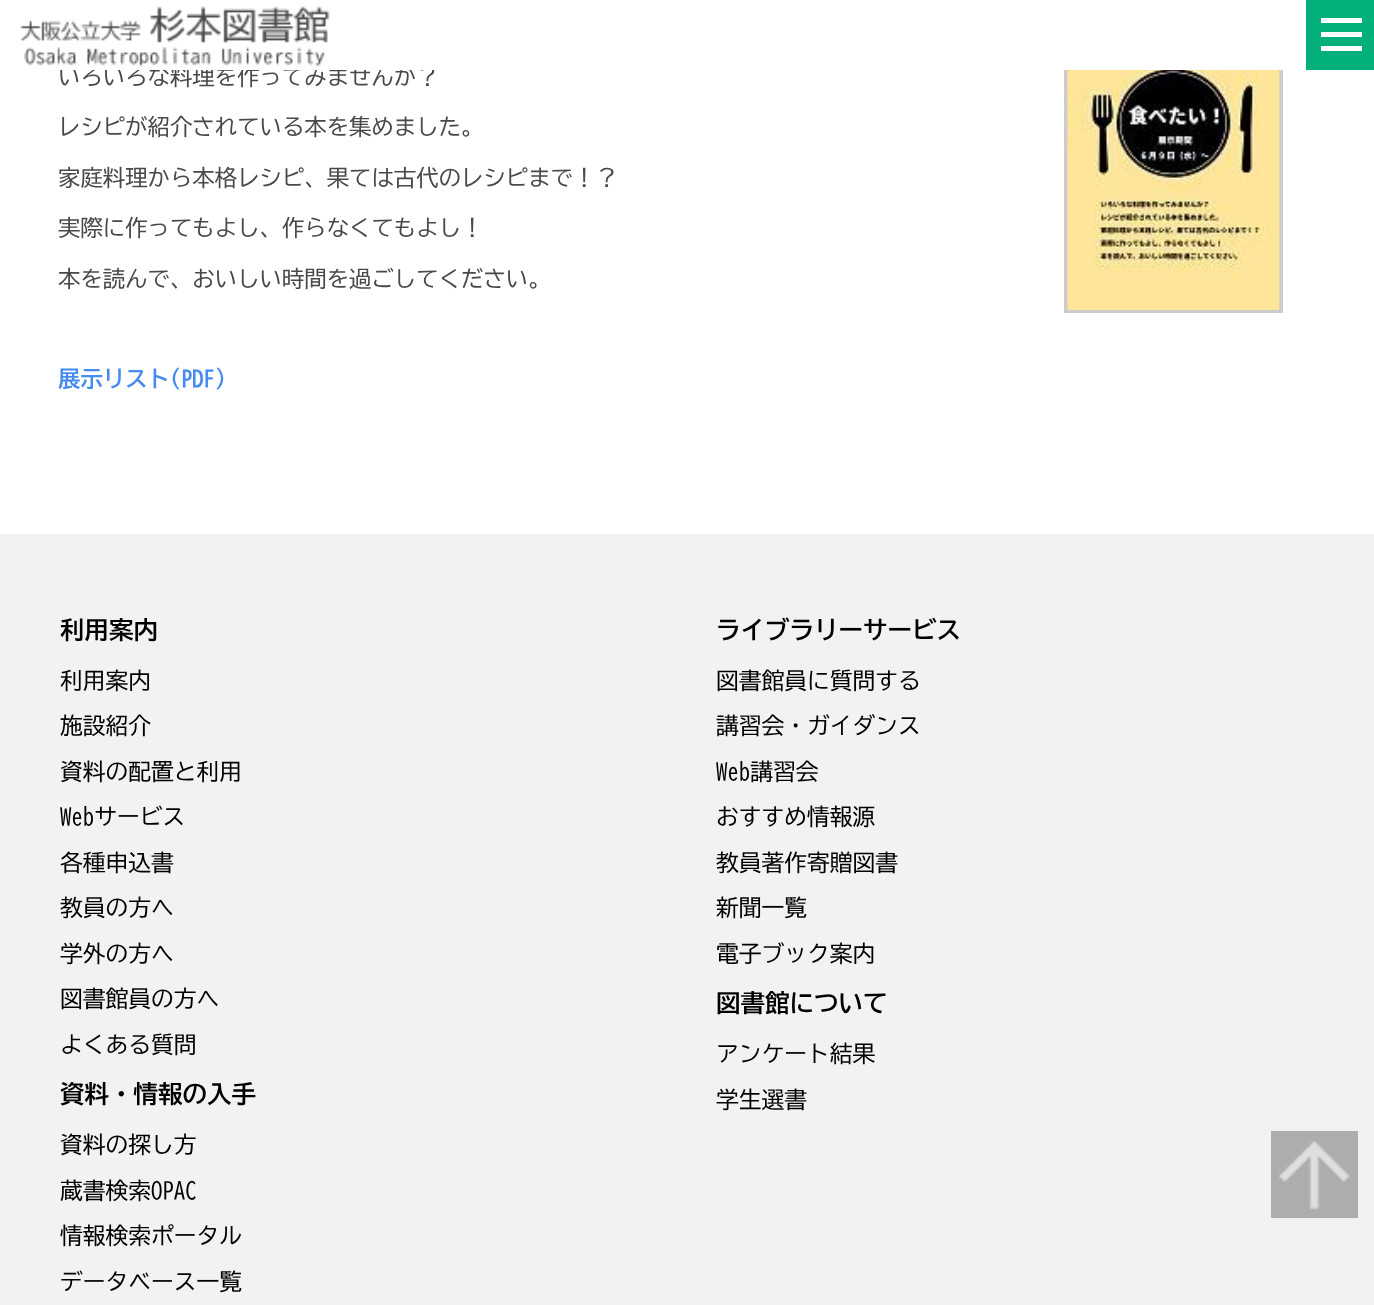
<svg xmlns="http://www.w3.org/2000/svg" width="1374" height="1305">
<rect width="100%" height="100%" fill="#fff"/>
<text x="58" y="85" style="font-family:BIZ UDGothic;font-size:22.4px;fill:#494949">いろいろな料理を作ってみませんか？</text>
<rect x="1066" y="6" width="215" height="305" fill="none" stroke="#ccc" stroke-width="4"/>
<rect x="60" y="4" width="1223" height="66" fill="#fff"/>
<image x="20" y="6" width="310" height="61" href="media/1.png"/>
<rect x="1306" width="68" height="70" fill="#03af7a"/>
<rect x="1321" y="18" width="41" height="5" fill="#fff"/>
<rect x="1321" y="32" width="41" height="5" fill="#fff"/>
<rect x="1321" y="46" width="41" height="5" fill="#fff"/>
<text x="58" y="135" style="font-family:BIZ UDGothic;font-size:22.4px;fill:#494949">レシピが紹介されている本を集めました。</text>
<text x="58" y="186" style="font-family:BIZ UDGothic;font-size:22.4px;fill:#494949">家庭料理から本格レシピ、果ては古代のレシピまで！？</text>
<text x="58" y="236" style="font-family:BIZ UDGothic;font-size:22.4px;fill:#494949">実際に作ってもよし、作らなくてもよし！</text>
<text x="58" y="287" style="font-family:BIZ UDGothic;font-size:22.4px;fill:#494949">本を読んで、おいしい時間を過ごしてください。</text>
<image x="1067" y="70" width="213" height="240" href="media/2.png"/>
<text x="58" y="387" style="font-family:BIZ UDGothic;font-size:22.4px;font-weight:bold;fill:#468cf0">展示リスト(PDF)</text>
<rect y="534" width="1374" height="771" fill="#f2f2f2"/>
<text x="60" y="639" style="font-family:BIZ UDGothic;font-size:24.5px;font-weight:bold;fill:#000">利用案内</text>
<text x="60" y="689" style="font-family:BIZ UDGothic;font-size:22.75px;fill:#000">利用案内</text>
<text x="60" y="734" style="font-family:BIZ UDGothic;font-size:22.75px;fill:#000">施設紹介</text>
<text x="60" y="780" style="font-family:BIZ UDGothic;font-size:22.75px;fill:#000">資料の配置と利用</text>
<text x="60" y="825" style="font-family:BIZ UDGothic;font-size:22.75px;fill:#000">Webサービス</text>
<text x="60" y="871" style="font-family:BIZ UDGothic;font-size:22.75px;fill:#000">各種申込書</text>
<text x="60" y="916" style="font-family:BIZ UDGothic;font-size:22.75px;fill:#000">教員の方へ</text>
<text x="60" y="962" style="font-family:BIZ UDGothic;font-size:22.75px;fill:#000">学外の方へ</text>
<text x="60" y="1007" style="font-family:BIZ UDGothic;font-size:22.75px;fill:#000">図書館員の方へ</text>
<text x="60" y="1053" style="font-family:BIZ UDGothic;font-size:22.75px;fill:#000">よくある質問</text>
<text x="60" y="1103" style="font-family:BIZ UDGothic;font-size:24.5px;font-weight:bold;fill:#000">資料・情報の入手</text>
<text x="60" y="1153" style="font-family:BIZ UDGothic;font-size:22.75px;fill:#000">資料の探し方</text>
<text x="60" y="1199" style="font-family:BIZ UDGothic;font-size:22.75px;fill:#000">蔵書検索OPAC</text>
<text x="60" y="1244" style="font-family:BIZ UDGothic;font-size:22.75px;fill:#000">情報検索ポータル</text>
<text x="60" y="1290" style="font-family:BIZ UDGothic;font-size:22.75px;fill:#000">データベース一覧</text>
<text x="716" y="639" style="font-family:BIZ UDGothic;font-size:24.5px;font-weight:bold;fill:#000">ライブラリーサービス</text>
<text x="716" y="689" style="font-family:BIZ UDGothic;font-size:22.75px;fill:#000">図書館員に質問する</text>
<text x="716" y="734" style="font-family:BIZ UDGothic;font-size:22.75px;fill:#000">講習会・ガイダンス</text>
<text x="716" y="780" style="font-family:BIZ UDGothic;font-size:22.75px;fill:#000">Web講習会</text>
<text x="716" y="825" style="font-family:BIZ UDGothic;font-size:22.75px;fill:#000">おすすめ情報源</text>
<text x="716" y="871" style="font-family:BIZ UDGothic;font-size:22.75px;fill:#000">教員著作寄贈図書</text>
<text x="716" y="916" style="font-family:BIZ UDGothic;font-size:22.75px;fill:#000">新聞一覧</text>
<text x="716" y="962" style="font-family:BIZ UDGothic;font-size:22.75px;fill:#000">電子ブック案内</text>
<text x="716" y="1012" style="font-family:BIZ UDGothic;font-size:24.5px;font-weight:bold;fill:#000">図書館について</text>
<text x="716" y="1062" style="font-family:BIZ UDGothic;font-size:22.75px;fill:#000">アンケート結果</text>
<text x="716" y="1108" style="font-family:BIZ UDGothic;font-size:22.75px;fill:#000">学生選書</text>
<rect x="1271" y="1131" width="87" height="87" fill="#adadad"/>
<image x="1279" y="1140" width="71" height="70" href="media/3.png"/>
</svg>
